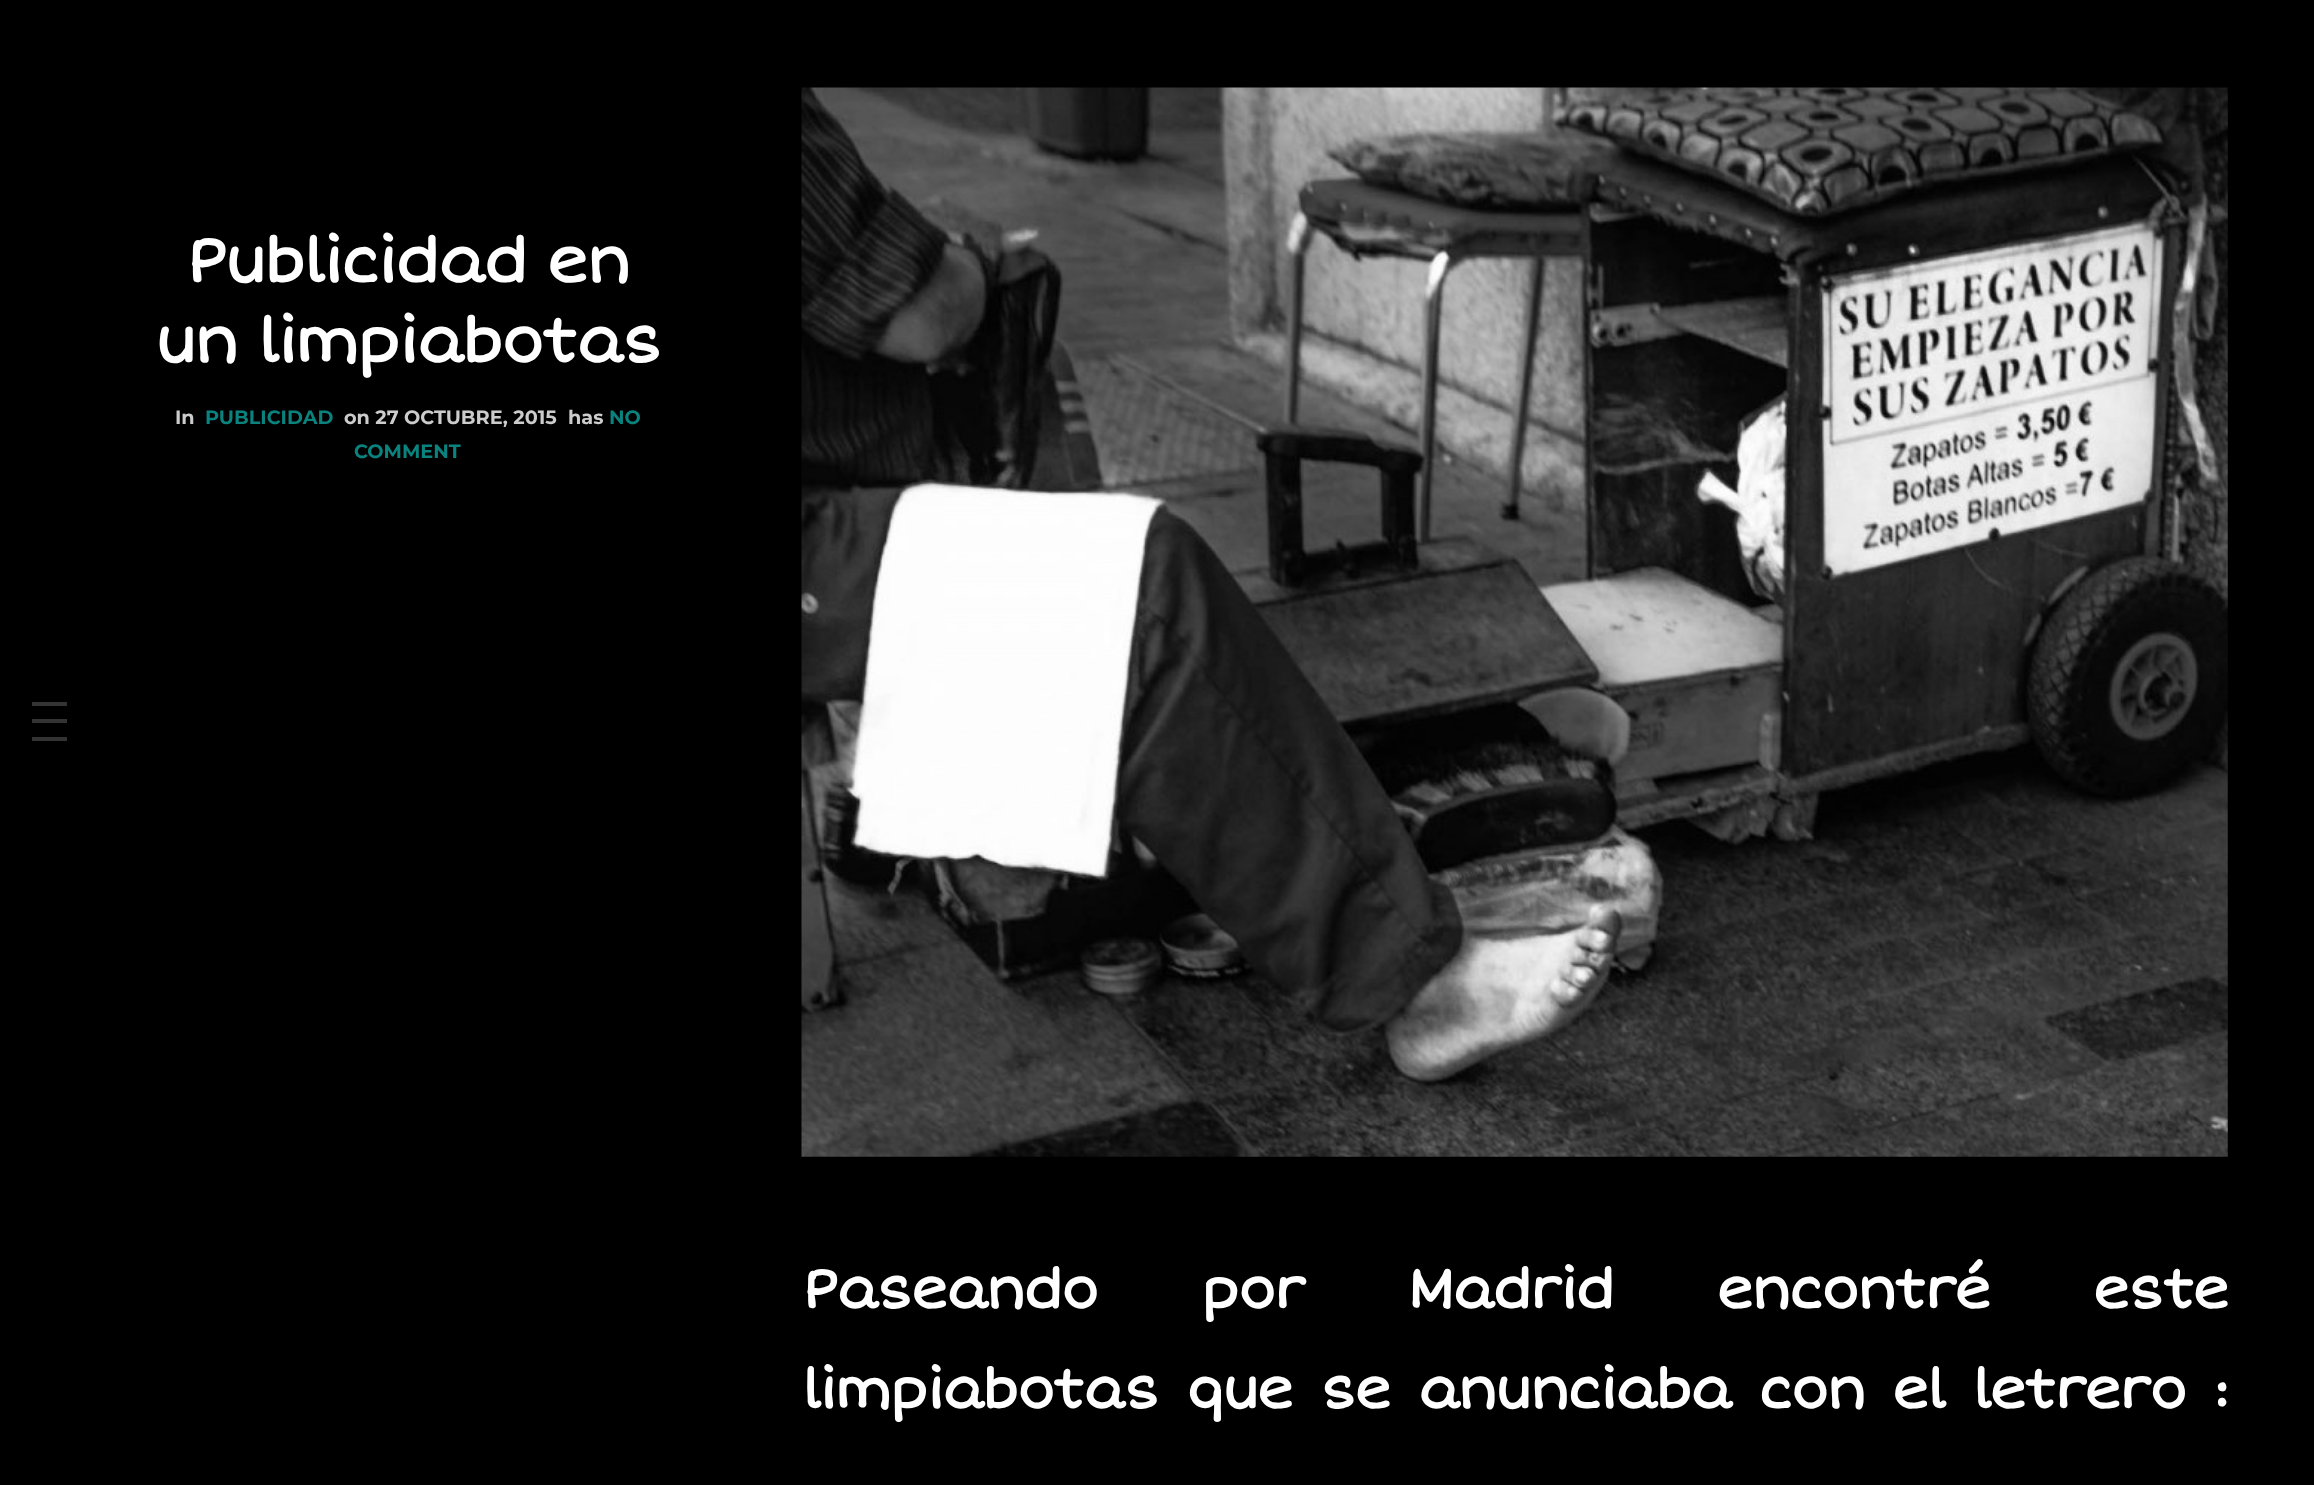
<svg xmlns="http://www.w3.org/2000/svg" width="2314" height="1485">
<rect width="100%" height="100%" fill="#000"/>
<rect x="32" y="719" width="35" height="4" fill="#333"/>
<rect x="32" y="702" width="35" height="4" fill="#333"/>
<rect x="32" y="737" width="35" height="4" fill="#333"/>
<text x="186" y="282" style="font-family:Short Stack;font-size:63px;font-weight:bold;letter-spacing:-1.75px;fill:#fff">Publicidad en</text>
<text x="155" y="362" style="font-family:Short Stack;font-size:63px;font-weight:bold;letter-spacing:-1.75px;fill:#fff">un limpiabotas</text>
<text x="175" y="424" style="font-family:Montserrat;font-size:19.25px;font-weight:bold;fill:#ccc">In</text>
<text x="205" y="424" style="font-family:Montserrat;font-size:19.25px;font-weight:bold;fill:#0a827e">PUBLICIDAD</text>
<text x="344" y="424" style="font-family:Montserrat;font-size:19.25px;font-weight:bold;fill:#ccc">on 27 OCTUBRE, 2015</text>
<text x="568" y="424" style="font-family:Montserrat;font-size:19.25px;font-weight:bold;fill:#ccc">has</text>
<text x="609" y="424" style="font-family:Montserrat;font-size:19.25px;font-weight:bold;fill:#0a827e">NO</text>
<text x="354" y="458" style="font-family:Montserrat;font-size:19.25px;font-weight:bold;fill:#0a827e">COMMENT</text>
<image x="801" y="87" width="1427" height="1070" href="media/1.png"/>
<text x="802" y="1308" word-spacing="85" style="font-family:Short Stack;font-size:56px;font-weight:bold;letter-spacing:-1.75px;fill:#fff">Paseando por Madrid encontré este</text>
<text x="802" y="1408" word-spacing="9.5" style="font-family:Short Stack;font-size:56px;font-weight:bold;letter-spacing:-1.75px;fill:#fff">limpiabotas que se anunciaba con el letrero :</text>
</svg>
